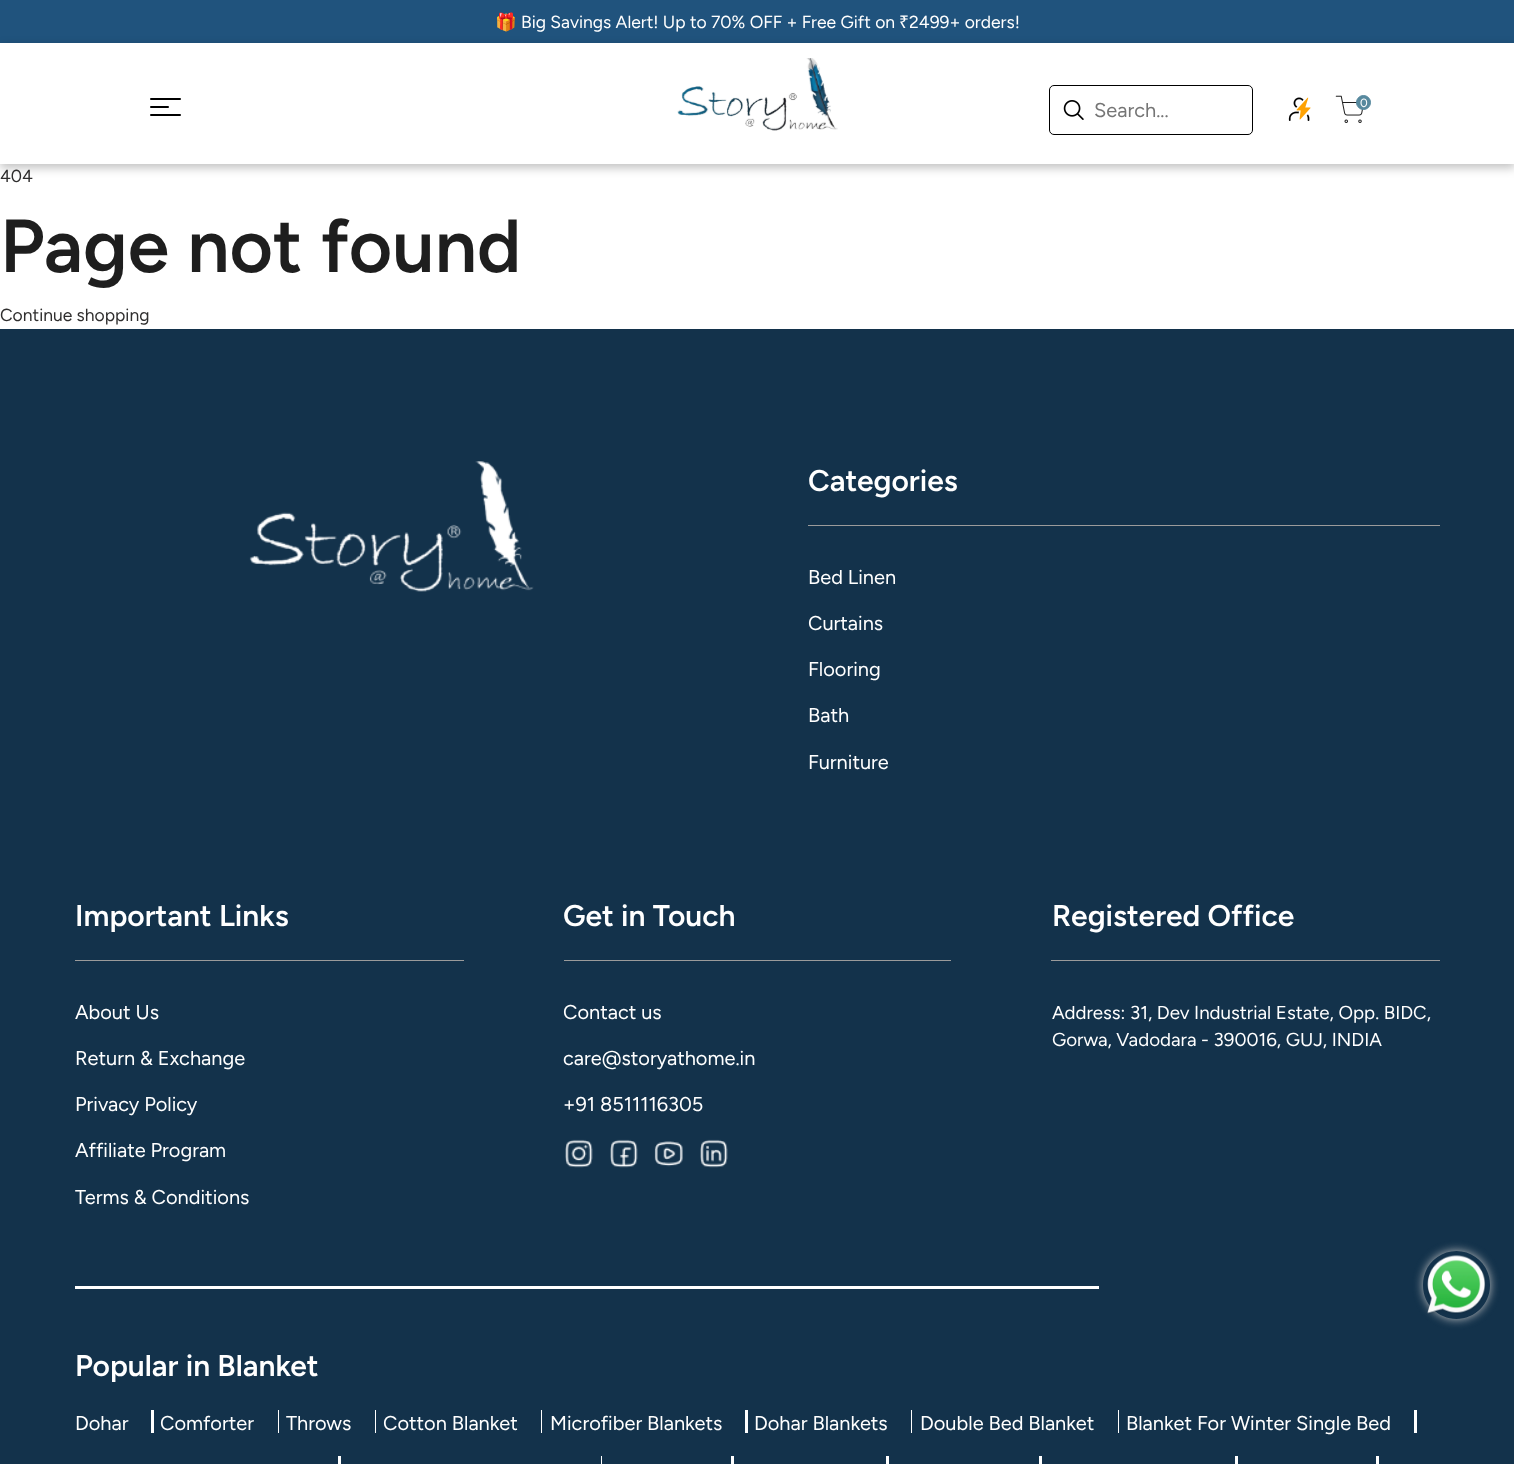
<svg xmlns="http://www.w3.org/2000/svg" width="1514" height="1464">
<defs>
<clipPath id="clip1"><path d="M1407 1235h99v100h-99zm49.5 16c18.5 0 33.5 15 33.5 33.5v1c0 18.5-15 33.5-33.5 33.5c-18.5 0-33.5-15-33.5-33.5v-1c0-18.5 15-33.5 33.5-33.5z" clip-rule="evenodd"/></clipPath>
</defs>
<rect width="100%" height="100%" fill="#fff"/>
<rect width="1514" height="43" fill="#20537d"/>
<text x="495" y="28" style="font-family:Noto Color Emoji;font-size:17.5px;fill:#fff">🎁</text>
<text x="521" y="28" style="font-family:Figtree;font-size:17.5px;fill:#fff">Big Savings Alert! Up to 70% OFF + Free Gift on</text>
<text x="899" y="28" style="font-family:Noto Sans;font-size:17.5px;fill:#fff">₹</text>
<text x="909" y="28" style="font-family:Figtree;font-size:17.5px;fill:#fff">2499+ orders!</text>
<rect y="46" width="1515" height="122" fill="#0000003d" filter="blur(5px)"/>
<rect y="43" width="1514" height="121" fill="#fff"/>
<rect x="150" y="98" width="31" height="2" rx="1" fill="#000"/>
<rect x="150" y="106" width="19" height="2" rx="1" fill="#000"/>
<rect x="150" y="114" width="31" height="2" rx="1" fill="#000"/>
<image x="677" y="58" width="161" height="73" href="media/1.png"/>
<rect x="1049.5" y="85.5" width="203" height="49" rx="4.5" fill="none" stroke="#000"/>
<image x="1063" y="100" width="21" height="20" href="media/2.png"/>
<text x="1094" y="117" style="font-family:Figtree;font-size:20px;fill:#757575">Search...</text>
<image x="1288" y="97" width="23" height="24" href="media/3.png"/>
<image x="1335" y="95" width="28" height="28" href="media/4.png"/>
<circle cx="1363.5" cy="102.5" r="7" fill="#57899e" stroke="#57899e"/>
<text x="1360" y="107" style="font-family:Figtree;font-size:12px;fill:#fff">0</text>
<text x="0" y="182" style="font-family:Figtree;font-size:17.5px;fill:#2f2e2e">404</text>
<text x="0" y="272" style="font-family:Figtree;font-size:75px;font-weight:600;fill:#1e1e1e">Page not found</text>
<text x="0" y="321" style="font-family:Figtree;font-size:17.5px;fill:#2f2e2e">Continue shopping</text>
<rect y="329" width="1514" height="1135" fill="#13324b"/>
<image x="249" y="461" width="285" height="131" href="media/5.png"/>
<rect x="808" y="525" width="632" height="1" fill="#9b9b9b"/>
<text x="808" y="491" style="font-family:Figtree;font-size:30px;font-weight:600;fill:#fff">Categories</text>
<text x="808" y="584" style="font-family:Figtree;font-size:20px;fill:#fff">Bed Linen</text>
<text x="808" y="630" style="font-family:Figtree;font-size:20px;fill:#fff">Curtains</text>
<text x="808" y="676" style="font-family:Figtree;font-size:20px;fill:#fff">Flooring</text>
<text x="808" y="722" style="font-family:Figtree;font-size:20px;fill:#fff">Bath</text>
<text x="808" y="769" style="font-family:Figtree;font-size:20px;fill:#fff">Furniture</text>
<rect x="75" y="960" width="389" height="1" fill="#9b9b9b"/>
<text x="75" y="926" style="font-family:Figtree;font-size:30px;font-weight:600;fill:#fff">Important Links</text>
<text x="75" y="1019" style="font-family:Figtree;font-size:20px;fill:#fff">About Us</text>
<text x="75" y="1065" style="font-family:Figtree;font-size:20px;fill:#fff">Return &amp; Exchange</text>
<text x="75" y="1111" style="font-family:Figtree;font-size:20px;fill:#fff">Privacy Policy</text>
<text x="75" y="1157" style="font-family:Figtree;font-size:20px;fill:#fff">Affiliate Program</text>
<text x="75" y="1204" style="font-family:Figtree;font-size:20px;fill:#fff">Terms &amp; Conditions</text>
<rect x="564" y="960" width="387" height="1" fill="#9b9b9b"/>
<text x="563" y="926" style="font-family:Figtree;font-size:30px;font-weight:600;fill:#fff">Get in Touch</text>
<text x="563" y="1019" style="font-family:Figtree;font-size:20px;fill:#fff">Contact us</text>
<text x="563" y="1065" style="font-family:Figtree;font-size:20px;fill:#fff">care@storyathome.in</text>
<text x="563" y="1111" style="font-family:Figtree;font-size:20px;fill:#fff">+91 8511116305</text>
<image x="565" y="1139" width="28" height="29" href="media/6.png"/>
<image x="610" y="1139" width="28" height="29" href="media/7.png"/>
<image x="654" y="1141" width="29" height="26" href="media/8.png"/>
<image x="700" y="1139" width="28" height="29" href="media/9.png"/>
<rect x="1051" y="960" width="389" height="1" fill="#9b9b9b"/>
<text x="1052" y="926" style="font-family:Figtree;font-size:30px;font-weight:600;fill:#fff">Registered Office</text>
<text x="1052" y="1019" style="font-family:Figtree;font-size:18.75px;fill:#fff">Address: 31, Dev Industrial Estate, Opp. BIDC,</text>
<text x="1052" y="1046" style="font-family:Figtree;font-size:18.75px;fill:#fff">Gorwa, Vadodara - 390016, GUJ, INDIA</text>
<rect x="75" y="1286" width="1024" height="3" fill="#fff"/>
<text x="75" y="1376" style="font-family:Figtree;font-size:30px;font-weight:600;fill:#fff">Popular in Blanket</text>
<text x="75" y="1430" style="font-family:Figtree;font-size:20px;fill:#fff">Dohar</text>
<rect x="151" y="1410" width="3" height="23" fill="#fff"/>
<text x="160" y="1430" style="font-family:Figtree;font-size:20px;fill:#fff">Comforter</text>
<rect x="278" y="1410" width="1" height="23" fill="#fff"/>
<text x="286" y="1430" style="font-family:Figtree;font-size:20px;fill:#fff">Throws</text>
<rect x="375" y="1410" width="1" height="23" fill="#fff"/>
<text x="383" y="1430" style="font-family:Figtree;font-size:20px;fill:#fff">Cotton Blanket</text>
<rect x="541" y="1410" width="1" height="23" fill="#fff"/>
<text x="550" y="1430" style="font-family:Figtree;font-size:20px;fill:#fff">Microfiber Blankets</text>
<rect x="745" y="1410" width="3" height="23" fill="#fff"/>
<text x="754" y="1430" style="font-family:Figtree;font-size:20px;fill:#fff">Dohar Blankets</text>
<rect x="911" y="1410" width="1" height="23" fill="#fff"/>
<text x="920" y="1430" style="font-family:Figtree;font-size:20px;fill:#fff">Double Bed Blanket</text>
<rect x="1118" y="1410" width="1" height="23" fill="#fff"/>
<text x="1126" y="1430" style="font-family:Figtree;font-size:20px;fill:#fff">Blanket For Winter Single Bed</text>
<rect x="1414" y="1410" width="3" height="23" fill="#fff"/>
<rect x="338" y="1456" width="3" height="8" fill="#fff"/>
<rect x="601" y="1456" width="1" height="8" fill="#fff"/>
<rect x="731" y="1456" width="3" height="8" fill="#fff"/>
<rect x="886" y="1456" width="3" height="8" fill="#fff"/>
<rect x="1039" y="1456" width="3" height="8" fill="#fff"/>
<rect x="1235" y="1456" width="3" height="8" fill="#fff"/>
<rect x="1376" y="1456" width="3" height="8" fill="#fff"/>
<g clip-path="url(#clip1)">
<rect x="1423" y="1251" width="67" height="68" rx="33.5" fill="#c2c2c2" filter="blur(5px)"/>
</g>
<image x="1427" y="1255" width="59" height="59" href="media/10.png"/>
</svg>
